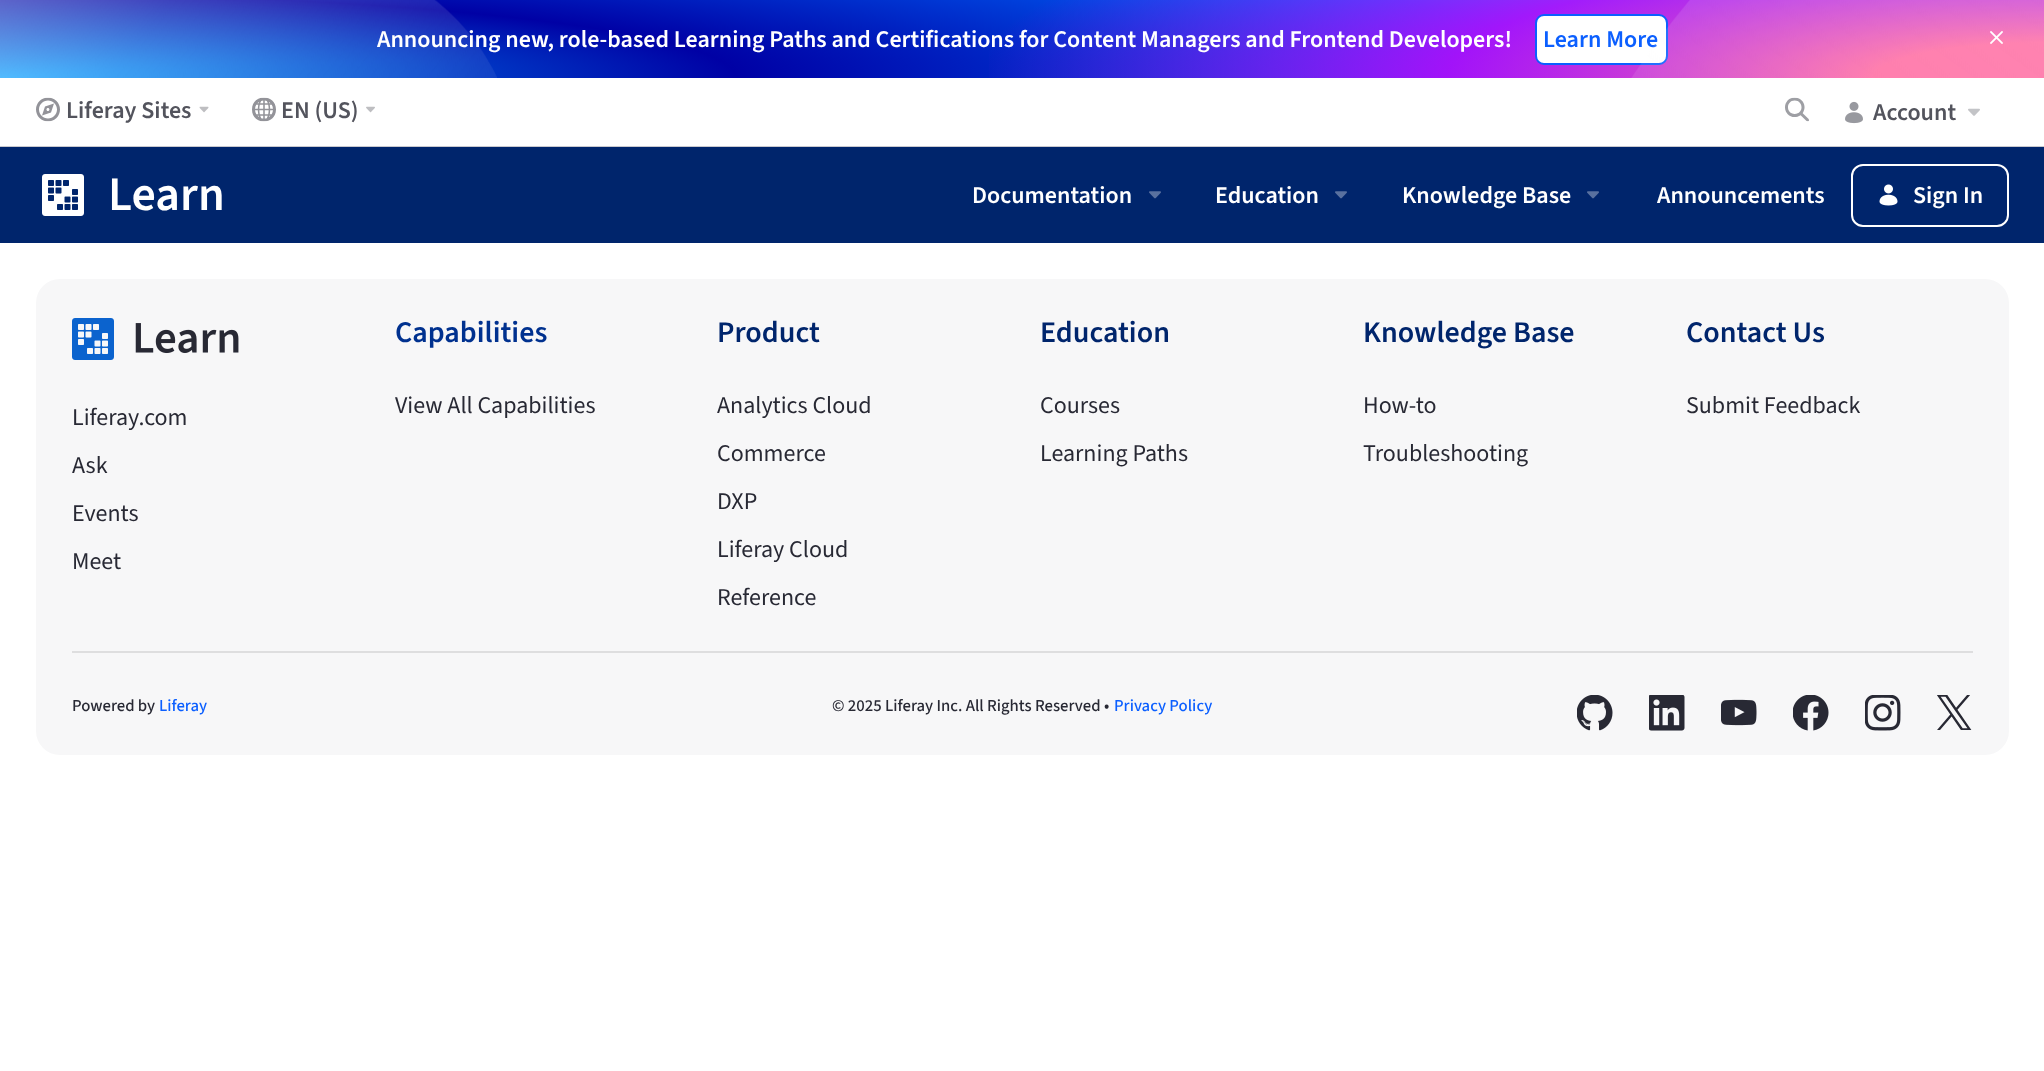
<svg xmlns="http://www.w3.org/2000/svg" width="2044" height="1071">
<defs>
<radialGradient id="g1" gradientUnits="userSpaceOnUse" cx="0" cy="0" r="1" gradientTransform="matrix(2045 0 0 234 0 78)"><stop offset="0" stop-color="#009cff"/><stop offset="0.36" stop-color="#0001a5"/><stop offset="0.76" stop-color="#0069ff"/><stop offset="1" stop-color="#00e0ff"/></radialGradient>
<radialGradient id="g2" gradientUnits="userSpaceOnUse" cx="0" cy="0" r="1" gradientTransform="matrix(1068 0 0 222 2045 78)"><stop offset="0.16" stop-color="#ff6da3"/><stop offset="0.56" stop-color="#ca00fa" stop-opacity="0.8"/><stop offset="1" stop-color="#ca00fa" stop-opacity="0"/></radialGradient>
</defs>
<rect width="100%" height="100%" fill="#fff"/>
<rect width="2044" height="78" fill="url(#g1)"/>
<rect x="989" width="1055" height="78" fill="url(#g2)"/>
<text x="377" y="47" style="font-family:'Source Sans 3';font-size:24px;font-weight:600;fill:#fff">Announcing new, role-based Learning Paths and Certifications for Content Managers and Frontend Developers!</text>
<image x="0" y="0" width="497" height="78" href="media/1.png"/>
<rect x="1536" y="15" width="131" height="49" rx="8" fill="#fff" stroke="#0b5fff" stroke-width="2"/>
<text x="1543" y="47" style="font-family:'Source Sans 3';font-size:24px;font-weight:600;fill:#0b5fff">Learn More</text>
<image x="1631" y="0" width="413" height="78" href="media/3.png"/>
<image x="1990" y="31" width="13" height="13" href="media/2.png"/>
<rect y="146" width="2044" height="1" fill="#c9c9cf"/>
<image x="36" y="97" width="24" height="25" href="media/4.png"/>
<text x="66" y="118" style="font-family:'Source Sans 3';font-size:24px;font-weight:600;fill:#53545d">Liferay Sites</text>
<image x="199" y="106" width="10" height="7" href="media/5.png"/>
<image x="252" y="97" width="24" height="25" href="media/6.png"/>
<text x="281" y="118" style="font-family:'Source Sans 3';font-size:24px;font-weight:600;fill:#53545d">EN (US)</text>
<image x="366" y="106" width="9" height="7" href="media/7.png"/>
<image x="1785" y="97" width="24" height="25" href="media/8.png"/>
<image x="1845" y="101" width="18" height="23" href="media/9.png"/>
<text x="1873" y="120" style="font-family:'Source Sans 3';font-size:24px;font-weight:600;fill:#53545d">Account</text>
<image x="1968" y="108" width="12" height="8" href="media/10.png"/>
<rect y="147" width="2044" height="96" fill="#00256c"/>
<image x="42" y="174" width="42" height="42" href="media/11.png"/>
<text x="108" y="210" style="font-family:'Source Sans 3';font-size:48px;font-weight:600;fill:#fff">Learn</text>
<text x="972" y="203" style="font-family:'Source Sans 3';font-size:24px;font-weight:600;fill:#fff">Documentation</text>
<image x="1149" y="191" width="12" height="8" href="media/12.png"/>
<text x="1215" y="203" style="font-family:'Source Sans 3';font-size:24px;font-weight:600;fill:#fff">Education</text>
<image x="1335" y="191" width="12" height="8" href="media/12.png"/>
<text x="1402" y="203" style="font-family:'Source Sans 3';font-size:24px;font-weight:600;fill:#fff">Knowledge Base</text>
<image x="1587" y="191" width="12" height="8" href="media/12.png"/>
<text x="1657" y="203" style="font-family:'Source Sans 3';font-size:24px;font-weight:600;fill:#fff">Announcements</text>
<rect x="1852" y="165" width="156" height="61" rx="11" fill="none" stroke="#fff" stroke-width="2"/>
<image x="1879" y="184" width="19" height="22" href="media/13.png"/>
<text x="1913" y="203" style="font-family:'Source Sans 3';font-size:24px;font-weight:600;fill:#fff">Sign In</text>
<rect x="36" y="279" width="1973" height="476" rx="24" fill="#f7f7f8"/>
<text x="395" y="342" style="font-family:'Source Sans 3';font-size:30px;font-weight:600;fill:#00318f">Capabilities</text>
<text x="395" y="413" style="font-family:'Source Sans 3';font-size:24px;fill:#282934">View All Capabilities</text>
<text x="717" y="342" style="font-family:'Source Sans 3';font-size:30px;font-weight:600;fill:#00256c">Product</text>
<text x="717" y="413" style="font-family:'Source Sans 3';font-size:24px;fill:#282934">Analytics Cloud</text>
<text x="717" y="461" style="font-family:'Source Sans 3';font-size:24px;fill:#282934">Commerce</text>
<text x="717" y="509" style="font-family:'Source Sans 3';font-size:24px;fill:#282934">DXP</text>
<text x="717" y="557" style="font-family:'Source Sans 3';font-size:24px;fill:#282934">Liferay Cloud</text>
<text x="717" y="605" style="font-family:'Source Sans 3';font-size:24px;fill:#282934">Reference</text>
<text x="1040" y="342" style="font-family:'Source Sans 3';font-size:30px;font-weight:600;fill:#00256c">Education</text>
<text x="1040" y="413" style="font-family:'Source Sans 3';font-size:24px;fill:#282934">Courses</text>
<text x="1040" y="461" style="font-family:'Source Sans 3';font-size:24px;fill:#282934">Learning Paths</text>
<text x="1363" y="342" style="font-family:'Source Sans 3';font-size:30px;font-weight:600;fill:#00256c">Knowledge Base</text>
<text x="1363" y="413" style="font-family:'Source Sans 3';font-size:24px;fill:#282934">How-to</text>
<text x="1363" y="461" style="font-family:'Source Sans 3';font-size:24px;fill:#282934">Troubleshooting</text>
<text x="1686" y="342" style="font-family:'Source Sans 3';font-size:30px;font-weight:600;fill:#00256c">Contact Us</text>
<text x="1686" y="413" style="font-family:'Source Sans 3';font-size:24px;fill:#282934">Submit Feedback</text>
<image x="72" y="318" width="167" height="42" href="media/14.png"/>
<text x="72" y="425" style="font-family:'Source Sans 3';font-size:24px;fill:#282934">Liferay.com</text>
<text x="72" y="473" style="font-family:'Source Sans 3';font-size:24px;fill:#282934">Ask</text>
<text x="72" y="521" style="font-family:'Source Sans 3';font-size:24px;fill:#282934">Events</text>
<text x="72" y="569" style="font-family:'Source Sans 3';font-size:24px;fill:#282934">Meet</text>
<rect x="72" y="651" width="1901" height="2" fill="#dededf"/>
<text x="72" y="711" style="font-family:'Source Sans 3';font-size:16.75px;font-weight:500;fill:#282934">Powered by</text>
<text x="159" y="711" style="font-family:'Source Sans 3';font-size:16.75px;font-weight:500;fill:#0b5fff">Liferay</text>
<text x="832" y="711" style="font-family:'Source Sans 3';font-size:16.75px;font-weight:500;fill:#282934">© 2025 Liferay Inc. All Rights Reserved •</text>
<text x="1114" y="711" style="font-family:'Source Sans 3';font-size:16.75px;font-weight:500;fill:#0b5fff">Privacy Policy</text>
<image x="1577" y="695" width="36" height="36" href="media/15.png"/>
<image x="1649" y="695" width="36" height="36" href="media/16.png"/>
<image x="1721" y="699" width="36" height="27" href="media/17.png"/>
<image x="1793" y="695" width="36" height="36" href="media/18.png"/>
<image x="1865" y="695" width="36" height="36" href="media/19.png"/>
<image x="1937" y="695" width="35" height="35" href="media/20.png"/>
</svg>
